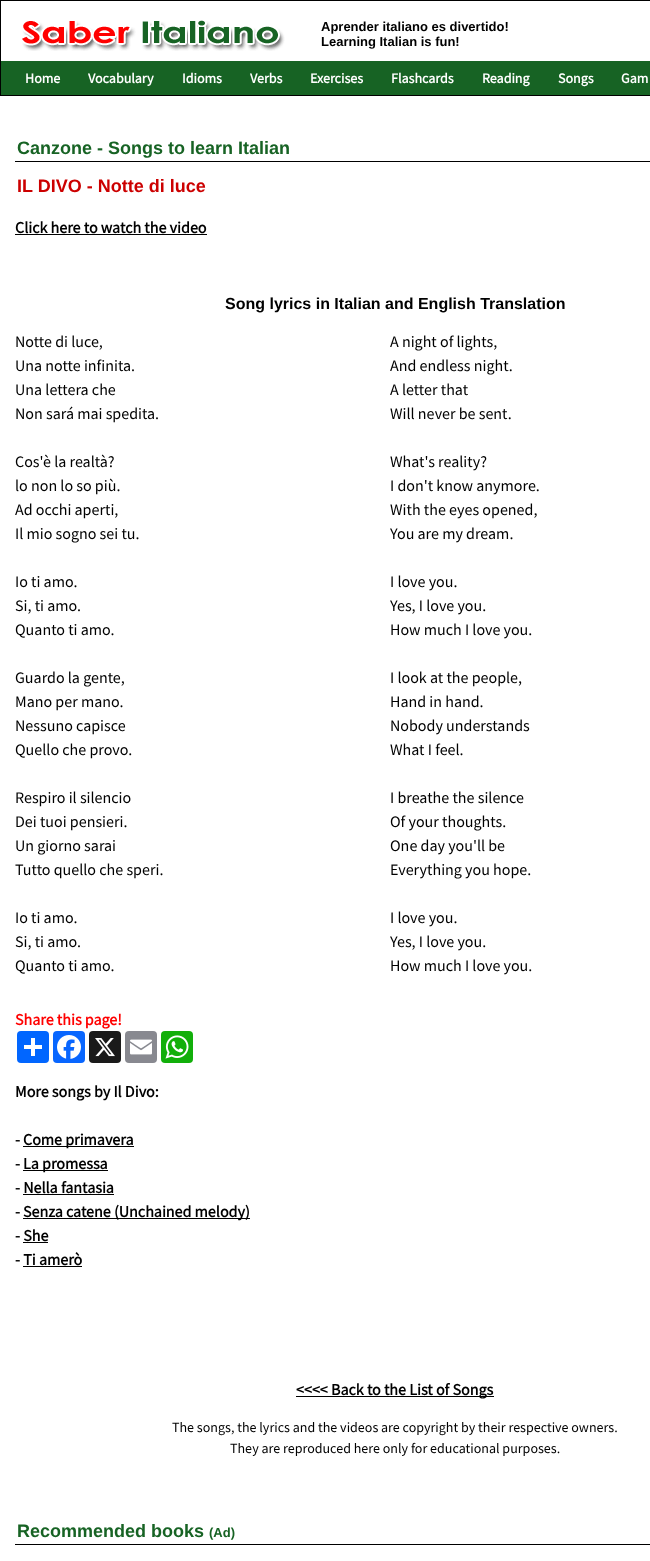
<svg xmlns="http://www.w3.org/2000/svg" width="650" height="1561">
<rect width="100%" height="100%" fill="#fff"/>
<rect x="0.5" y="0.5" width="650" height="95" fill="none" stroke="#000"/>
<image x="22" y="20" width="263" height="31" href="media/1.png"/>
<text x="321" y="31" style="font-family:Liberation Sans;font-size:13px;font-weight:bold;fill:#000">Aprender italiano es divertido!</text>
<text x="321" y="46" style="font-family:Liberation Sans;font-size:13px;font-weight:bold;fill:#000">Learning Italian is fun!</text>
<rect x="1" y="61" width="649" height="34" fill="#176324"/>
<text x="25" y="83" style="font-family:Source Sans Pro;font-size:14px;font-weight:bold;fill:#fff">Home</text>
<text x="88" y="83" style="font-family:Source Sans Pro;font-size:14px;font-weight:bold;fill:#fff">Vocabulary</text>
<text x="182" y="83" style="font-family:Source Sans Pro;font-size:14px;font-weight:bold;fill:#fff">Idioms</text>
<text x="250" y="83" style="font-family:Source Sans Pro;font-size:14px;font-weight:bold;fill:#fff">Verbs</text>
<text x="310" y="83" style="font-family:Source Sans Pro;font-size:14px;font-weight:bold;fill:#fff">Exercises</text>
<text x="391" y="83" style="font-family:Source Sans Pro;font-size:14px;font-weight:bold;fill:#fff">Flashcards</text>
<text x="482" y="83" style="font-family:Source Sans Pro;font-size:14px;font-weight:bold;fill:#fff">Reading</text>
<text x="558" y="83" style="font-family:Source Sans Pro;font-size:14px;font-weight:bold;fill:#fff">Songs</text>
<text x="621" y="83" style="font-family:Source Sans Pro;font-size:14px;font-weight:bold;fill:#fff">Gam</text>
<rect x="15" y="161" width="635" height="1" fill="#000"/>
<text x="17" y="154" style="font-family:Liberation Sans;font-size:18px;font-weight:bold;fill:#176324">Canzone - Songs to learn Italian</text>
<text x="17" y="192" style="font-family:Liberation Sans;font-size:18px;font-weight:bold;fill:#c00">IL DIVO - Notte di luce</text>
<text x="15" y="233" style="font-family:Source Sans Pro;font-size:16px;font-weight:bold;fill:#000">Click here to watch the video</text>
<rect x="15" y="234" width="192" height="1" fill="#000"/>
<text x="225" y="309" style="font-family:Liberation Sans;font-size:16px;font-weight:bold;fill:#000">Song lyrics in Italian and English Translation</text>
<text x="15" y="347" style="font-family:Source Sans Pro;font-size:16px;fill:#000">Notte di luce,</text>
<text x="15" y="371" style="font-family:Source Sans Pro;font-size:16px;fill:#000">Una notte infinita.</text>
<text x="15" y="395" style="font-family:Source Sans Pro;font-size:16px;fill:#000">Una lettera che</text>
<text x="15" y="419" style="font-family:Source Sans Pro;font-size:16px;fill:#000">Non sará mai spedita.</text>
<text x="15" y="467" style="font-family:Source Sans Pro;font-size:16px;fill:#000">Cos'è la realtà?</text>
<text x="15" y="491" style="font-family:Source Sans Pro;font-size:16px;fill:#000">lo non lo so più.</text>
<text x="15" y="515" style="font-family:Source Sans Pro;font-size:16px;fill:#000">Ad occhi aperti,</text>
<text x="15" y="539" style="font-family:Source Sans Pro;font-size:16px;fill:#000">Il mio sogno sei tu.</text>
<text x="15" y="587" style="font-family:Source Sans Pro;font-size:16px;fill:#000">Io ti amo.</text>
<text x="15" y="611" style="font-family:Source Sans Pro;font-size:16px;fill:#000">Si, ti amo.</text>
<text x="15" y="635" style="font-family:Source Sans Pro;font-size:16px;fill:#000">Quanto ti amo.</text>
<text x="15" y="683" style="font-family:Source Sans Pro;font-size:16px;fill:#000">Guardo la gente,</text>
<text x="15" y="707" style="font-family:Source Sans Pro;font-size:16px;fill:#000">Mano per mano.</text>
<text x="15" y="731" style="font-family:Source Sans Pro;font-size:16px;fill:#000">Nessuno capisce</text>
<text x="15" y="755" style="font-family:Source Sans Pro;font-size:16px;fill:#000">Quello che provo.</text>
<text x="15" y="803" style="font-family:Source Sans Pro;font-size:16px;fill:#000">Respiro il silencio</text>
<text x="15" y="827" style="font-family:Source Sans Pro;font-size:16px;fill:#000">Dei tuoi pensieri.</text>
<text x="15" y="851" style="font-family:Source Sans Pro;font-size:16px;fill:#000">Un giorno sarai</text>
<text x="15" y="875" style="font-family:Source Sans Pro;font-size:16px;fill:#000">Tutto quello che speri.</text>
<text x="15" y="923" style="font-family:Source Sans Pro;font-size:16px;fill:#000">Io ti amo.</text>
<text x="15" y="947" style="font-family:Source Sans Pro;font-size:16px;fill:#000">Si, ti amo.</text>
<text x="15" y="971" style="font-family:Source Sans Pro;font-size:16px;fill:#000">Quanto ti amo.</text>
<text x="390" y="347" style="font-family:Source Sans Pro;font-size:16px;fill:#000">A night of lights,</text>
<text x="390" y="371" style="font-family:Source Sans Pro;font-size:16px;fill:#000">And endless night.</text>
<text x="390" y="395" style="font-family:Source Sans Pro;font-size:16px;fill:#000">A letter that</text>
<text x="390" y="419" style="font-family:Source Sans Pro;font-size:16px;fill:#000">Will never be sent.</text>
<text x="390" y="467" style="font-family:Source Sans Pro;font-size:16px;fill:#000">What's reality?</text>
<text x="390" y="491" style="font-family:Source Sans Pro;font-size:16px;fill:#000">I don't know anymore.</text>
<text x="390" y="515" style="font-family:Source Sans Pro;font-size:16px;fill:#000">With the eyes opened,</text>
<text x="390" y="539" style="font-family:Source Sans Pro;font-size:16px;fill:#000">You are my dream.</text>
<text x="390" y="587" style="font-family:Source Sans Pro;font-size:16px;fill:#000">I love you.</text>
<text x="390" y="611" style="font-family:Source Sans Pro;font-size:16px;fill:#000">Yes, I love you.</text>
<text x="390" y="635" style="font-family:Source Sans Pro;font-size:16px;fill:#000">How much I love you.</text>
<text x="390" y="683" style="font-family:Source Sans Pro;font-size:16px;fill:#000">I look at the people,</text>
<text x="390" y="707" style="font-family:Source Sans Pro;font-size:16px;fill:#000">Hand in hand.</text>
<text x="390" y="731" style="font-family:Source Sans Pro;font-size:16px;fill:#000">Nobody understands</text>
<text x="390" y="755" style="font-family:Source Sans Pro;font-size:16px;fill:#000">What I feel.</text>
<text x="390" y="803" style="font-family:Source Sans Pro;font-size:16px;fill:#000">I breathe the silence</text>
<text x="390" y="827" style="font-family:Source Sans Pro;font-size:16px;fill:#000">Of your thoughts.</text>
<text x="390" y="851" style="font-family:Source Sans Pro;font-size:16px;fill:#000">One day you'll be</text>
<text x="390" y="875" style="font-family:Source Sans Pro;font-size:16px;fill:#000">Everything you hope.</text>
<text x="390" y="923" style="font-family:Source Sans Pro;font-size:16px;fill:#000">I love you.</text>
<text x="390" y="947" style="font-family:Source Sans Pro;font-size:16px;fill:#000">Yes, I love you.</text>
<text x="390" y="971" style="font-family:Source Sans Pro;font-size:16px;fill:#000">How much I love you.</text>
<text x="15" y="1025" style="font-family:Source Sans Pro;font-size:16px;font-weight:bold;fill:#f00">Share this page!</text>
<rect x="17" y="1031" width="32" height="32" rx="4" fill="#0166ff"/>
<rect x="31" y="1038" width="4" height="18" fill="#fff"/>
<rect x="24" y="1045" width="18" height="4" fill="#fff"/>
<rect x="53" y="1031" width="32" height="32" rx="4" fill="#0866ff"/>
<image x="57" y="1035" width="24" height="24" href="media/2.png"/>
<rect x="89" y="1031" width="32" height="32" rx="4" fill="#1a1a1a"/>
<image x="95" y="1038" width="20" height="19" href="media/3.png"/>
<rect x="125" y="1031" width="32" height="32" rx="4" fill="#888990"/>
<image x="130" y="1039" width="22" height="16" href="media/4.png"/>
<rect x="161" y="1031" width="32" height="32" rx="4" fill="#12af0a"/>
<image x="165" y="1035" width="24" height="24" href="media/5.png"/>
<text x="15" y="1097" style="font-family:Source Sans Pro;font-size:16px;font-weight:bold;fill:#000">More songs by Il Divo:</text>
<text x="15" y="1145" style="font-family:Source Sans Pro;font-size:16px;font-weight:bold;fill:#000">-</text>
<rect x="23" y="1146" width="111" height="1" fill="#000"/>
<text x="23" y="1145" style="font-family:Source Sans Pro;font-size:16px;font-weight:bold;fill:#000">Come primavera</text>
<text x="15" y="1169" style="font-family:Source Sans Pro;font-size:16px;font-weight:bold;fill:#000">-</text>
<rect x="23" y="1170" width="85" height="1" fill="#000"/>
<text x="23" y="1169" style="font-family:Source Sans Pro;font-size:16px;font-weight:bold;fill:#000">La promessa</text>
<text x="15" y="1193" style="font-family:Source Sans Pro;font-size:16px;font-weight:bold;fill:#000">- Nella fantasia</text>
<rect x="23" y="1194" width="91" height="1" fill="#000"/>
<text x="15" y="1217" style="font-family:Source Sans Pro;font-size:16px;font-weight:bold;fill:#000">-</text>
<rect x="23" y="1218" width="227" height="1" fill="#000"/>
<text x="23" y="1217" style="font-family:Source Sans Pro;font-size:16px;font-weight:bold;fill:#000">Senza catene (Unchained melody)</text>
<text x="15" y="1241" style="font-family:Source Sans Pro;font-size:16px;font-weight:bold;fill:#000">- She</text>
<rect x="23" y="1242" width="25" height="1" fill="#000"/>
<text x="15" y="1265" style="font-family:Source Sans Pro;font-size:16px;font-weight:bold;fill:#000">- Ti amerò</text>
<rect x="23" y="1266" width="59" height="1" fill="#000"/>
<rect x="296" y="1396" width="198" height="1" fill="#000"/>
<text x="296" y="1395" style="font-family:Source Sans Pro;font-size:16px;font-weight:bold;fill:#000">&lt;&lt;&lt;&lt; Back to the List of Songs</text>
<text x="172" y="1432" style="font-family:Source Sans Pro;font-size:14px;fill:#000">The songs, the lyrics and the videos are copyright by their respective owners.</text>
<text x="230" y="1453" style="font-family:Source Sans Pro;font-size:14px;fill:#000">They are reproduced here only for educational purposes.</text>
<rect x="15" y="1544" width="635" height="1" fill="#000"/>
<text x="17" y="1537" style="font-family:Liberation Sans;font-size:18px;font-weight:bold;fill:#176324">Recommended books</text>
<text x="209" y="1537" style="font-family:Liberation Sans;font-size:13px;font-weight:bold;fill:#176324">(Ad)</text>
</svg>
